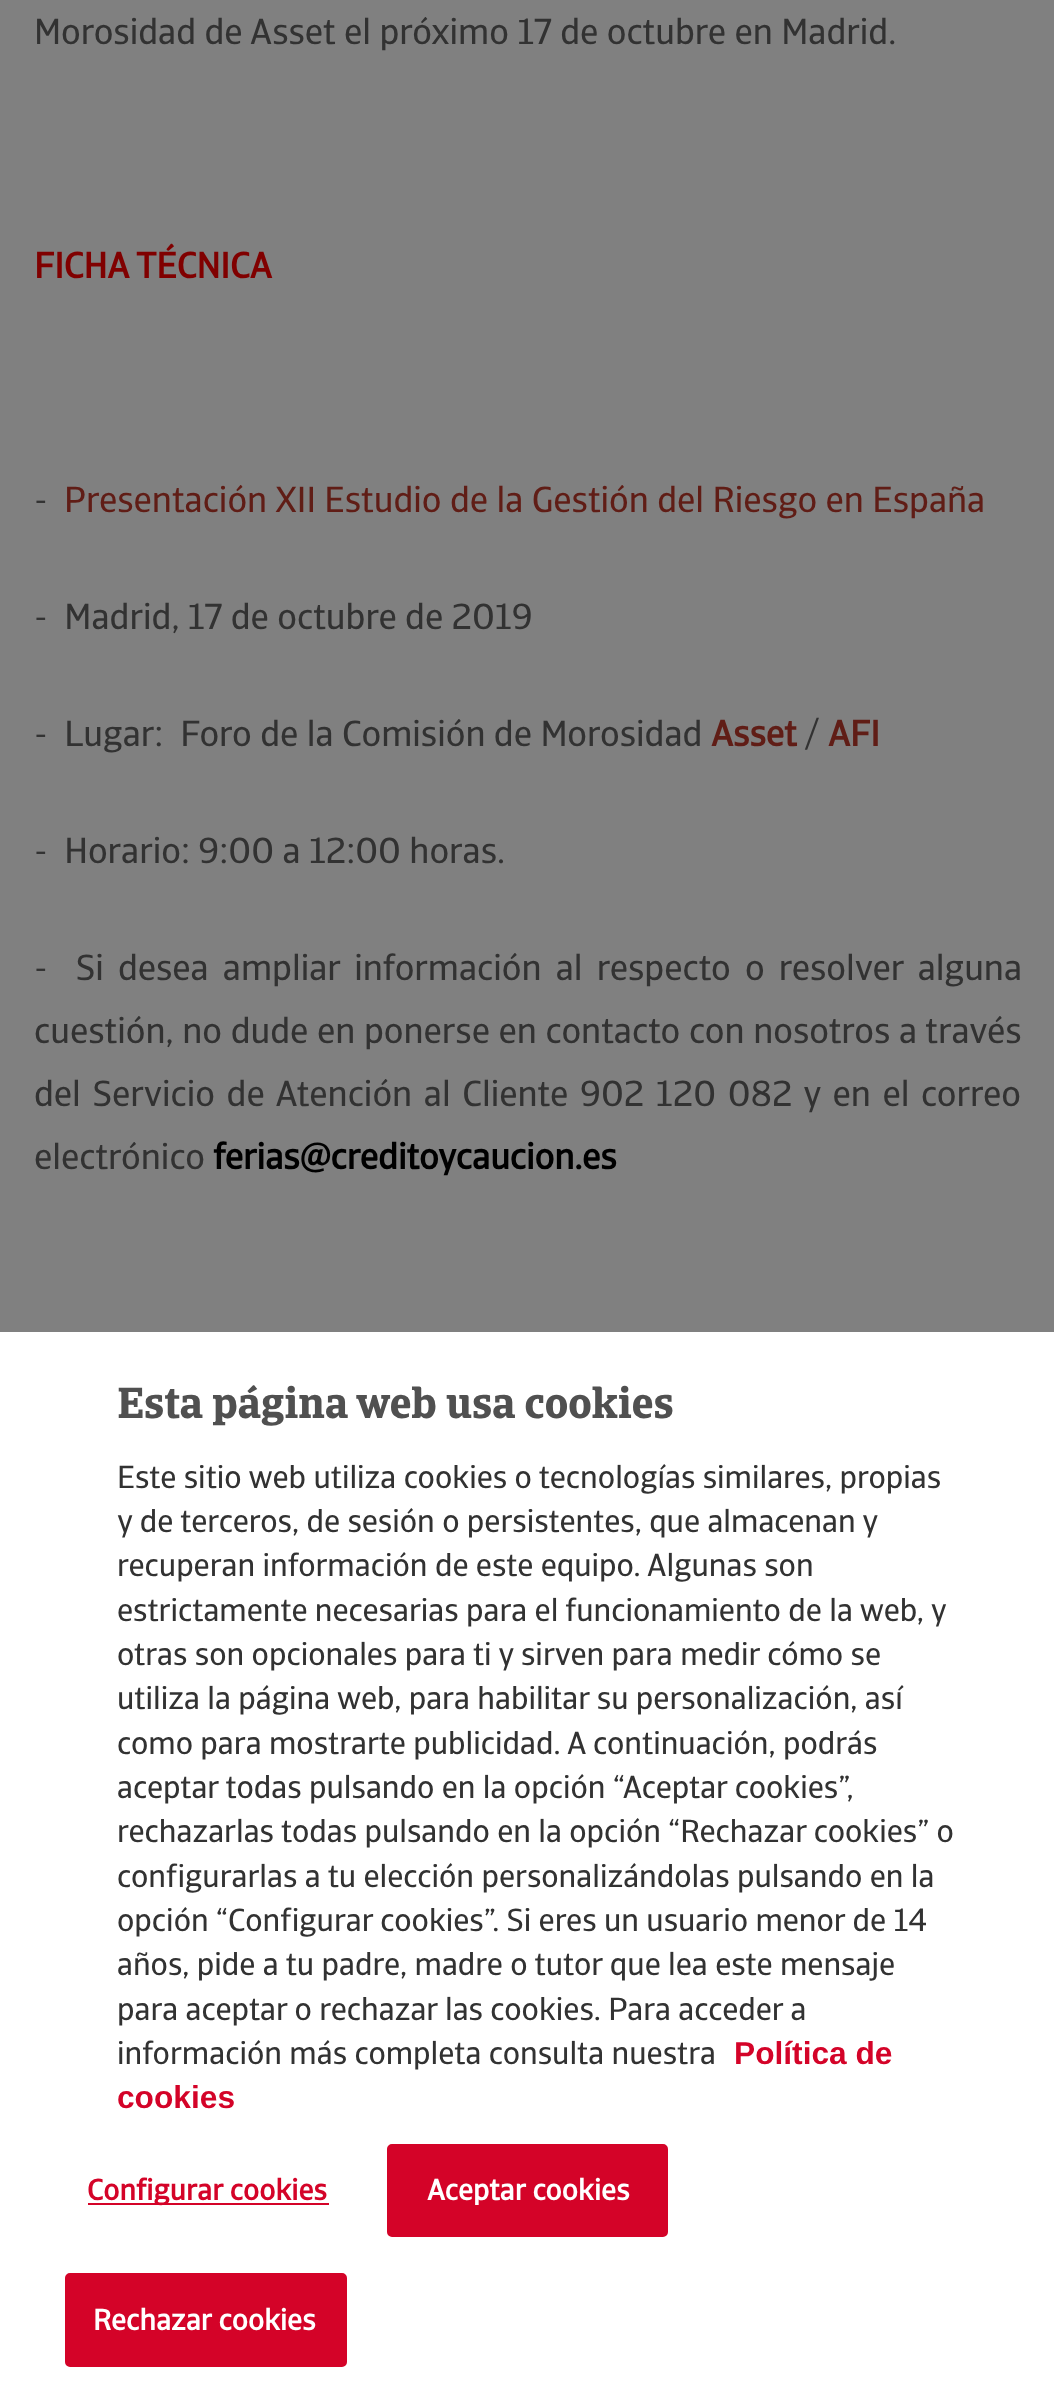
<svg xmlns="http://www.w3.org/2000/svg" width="1054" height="2403">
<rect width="100%" height="100%" fill="#808080"/>
<text x="34" y="44" style="font-family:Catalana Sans;font-size:36px;fill:#323232">Morosidad de Asset el próximo 17 de octubre en Madrid.</text>
<text x="34" y="278" style="font-family:Catalana Sans;font-size:36px;font-weight:bold;fill:#800000">FICHA TÉCNICA</text>
<text x="34" y="512" style="font-family:Catalana Sans;font-size:36px;fill:#323232">-</text>
<text x="64" y="512" style="font-family:Catalana Sans;font-size:36px;fill:#601d16">Presentación XII Estudio de la Gestión del Riesgo en España</text>
<text x="34" y="629" style="font-family:Catalana Sans;font-size:36px;fill:#323232" xml:space="preserve">-  Madrid, 17 de octubre de 2019</text>
<text x="34" y="746" style="font-family:Catalana Sans;font-size:36px;fill:#323232" xml:space="preserve">-  Lugar:  Foro de la Comisión de Morosidad</text>
<text x="711" y="746" style="font-family:Catalana Sans;font-size:36px;font-weight:bold;fill:#601d16">Asset</text>
<text x="804" y="746" style="font-family:Catalana Sans;font-size:36px;fill:#323232">/</text>
<text x="828" y="746" style="font-family:Catalana Sans;font-size:36px;font-weight:bold;fill:#601d16">AFI</text>
<text x="34" y="863" style="font-family:Catalana Sans;font-size:36px;fill:#323232" xml:space="preserve">-  Horario: 9:00 a 12:00 horas.</text>
<text x="34" y="980" word-spacing="5.75" style="font-family:Catalana Sans;font-size:36px;fill:#323232" xml:space="preserve">-  Si desea ampliar información al respecto o resolver alguna</text>
<text x="34" y="1043" word-spacing="0.25" style="font-family:Catalana Sans;font-size:36px;fill:#323232">cuestión, no dude en ponerse en contacto con nosotros a través</text>
<text x="34" y="1106" word-spacing="3.25" style="font-family:Catalana Sans;font-size:36px;fill:#323232">del Servicio de Atención al Cliente 902 120 082 y en el correo</text>
<text x="34" y="1169" style="font-family:Catalana Sans;font-size:36px;fill:#323232">electrónico</text>
<text x="213" y="1169" style="font-family:Catalana Sans;font-size:36px;font-weight:bold;fill:#000">ferias@creditoycaucion.es</text>
<rect y="1332" width="1054" height="1071" fill="#fff"/>
<text x="117" y="1418" style="font-family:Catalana;font-size:43.25px;font-weight:bold;fill:#505050">Esta página web usa cookies</text>
<text x="117" y="1488" style="font-family:Catalana Sans;font-size:31.7px;fill:#323232">Este sitio web utiliza cookies o tecnologías similares, propias</text>
<text x="117" y="1532" style="font-family:Catalana Sans;font-size:31.7px;fill:#323232">y de terceros, de sesión o persistentes, que almacenan y</text>
<text x="117" y="1576" style="font-family:Catalana Sans;font-size:31.7px;fill:#323232">recuperan información de este equipo. Algunas son</text>
<text x="117" y="1621" style="font-family:Catalana Sans;font-size:31.7px;fill:#323232">estrictamente necesarias para el funcionamiento de la web, y</text>
<text x="117" y="1665" style="font-family:Catalana Sans;font-size:31.7px;fill:#323232">otras son opcionales para ti y sirven para medir cómo se</text>
<text x="117" y="1709" style="font-family:Catalana Sans;font-size:31.7px;fill:#323232">utiliza la página web, para habilitar su personalización, así</text>
<text x="117" y="1754" style="font-family:Catalana Sans;font-size:31.7px;fill:#323232">como para mostrarte publicidad. A continuación, podrás</text>
<text x="117" y="1798" style="font-family:Catalana Sans;font-size:31.7px;fill:#323232">aceptar todas pulsando en la opción “Aceptar cookies”,</text>
<text x="117" y="1842" style="font-family:Catalana Sans;font-size:31.7px;fill:#323232">rechazarlas todas pulsando en la opción “Rechazar cookies” o</text>
<text x="117" y="1887" style="font-family:Catalana Sans;font-size:31.7px;fill:#323232">configurarlas a tu elección personalizándolas pulsando en la</text>
<text x="117" y="1931" style="font-family:Catalana Sans;font-size:31.7px;fill:#323232">opción “Configurar cookies”. Si eres un usuario menor de 14</text>
<text x="117" y="1975" style="font-family:Catalana Sans;font-size:31.7px;fill:#323232">años, pide a tu padre, madre o tutor que lea este mensaje</text>
<text x="117" y="2020" style="font-family:Catalana Sans;font-size:31.7px;fill:#323232">para aceptar o rechazar las cookies. Para acceder a</text>
<text x="117" y="2064" style="font-family:Catalana Sans;font-size:31.7px;fill:#323232">información más completa consulta nuestra</text>
<text x="734" y="2064" style="font-family:Liberation Sans;font-size:31.7px;font-weight:bold;fill:#d40328">Política de</text>
<text x="117" y="2108" style="font-family:Liberation Sans;font-size:31.7px;font-weight:bold;fill:#d40328">cookies</text>
<rect x="88" y="2203" width="241" height="2" fill="#d40328"/>
<text x="87" y="2200" style="font-family:Catalana Sans;font-size:29.25px;font-weight:bold;letter-spacing:0.25px;fill:#d40328">Configurar cookies</text>
<rect x="388" y="2145" width="279" height="91" rx="4" fill="#d40328" stroke="#d40328" stroke-width="2"/>
<text x="427" y="2200" style="font-family:Catalana Sans;font-size:29.25px;font-weight:bold;letter-spacing:0.25px;fill:#fff">Aceptar cookies</text>
<rect x="66" y="2274" width="280" height="92" rx="4" fill="#d40328" stroke="#d40328" stroke-width="2"/>
<text x="93" y="2330" style="font-family:Catalana Sans;font-size:29.25px;font-weight:bold;letter-spacing:0.25px;fill:#fff">Rechazar cookies</text>
</svg>
